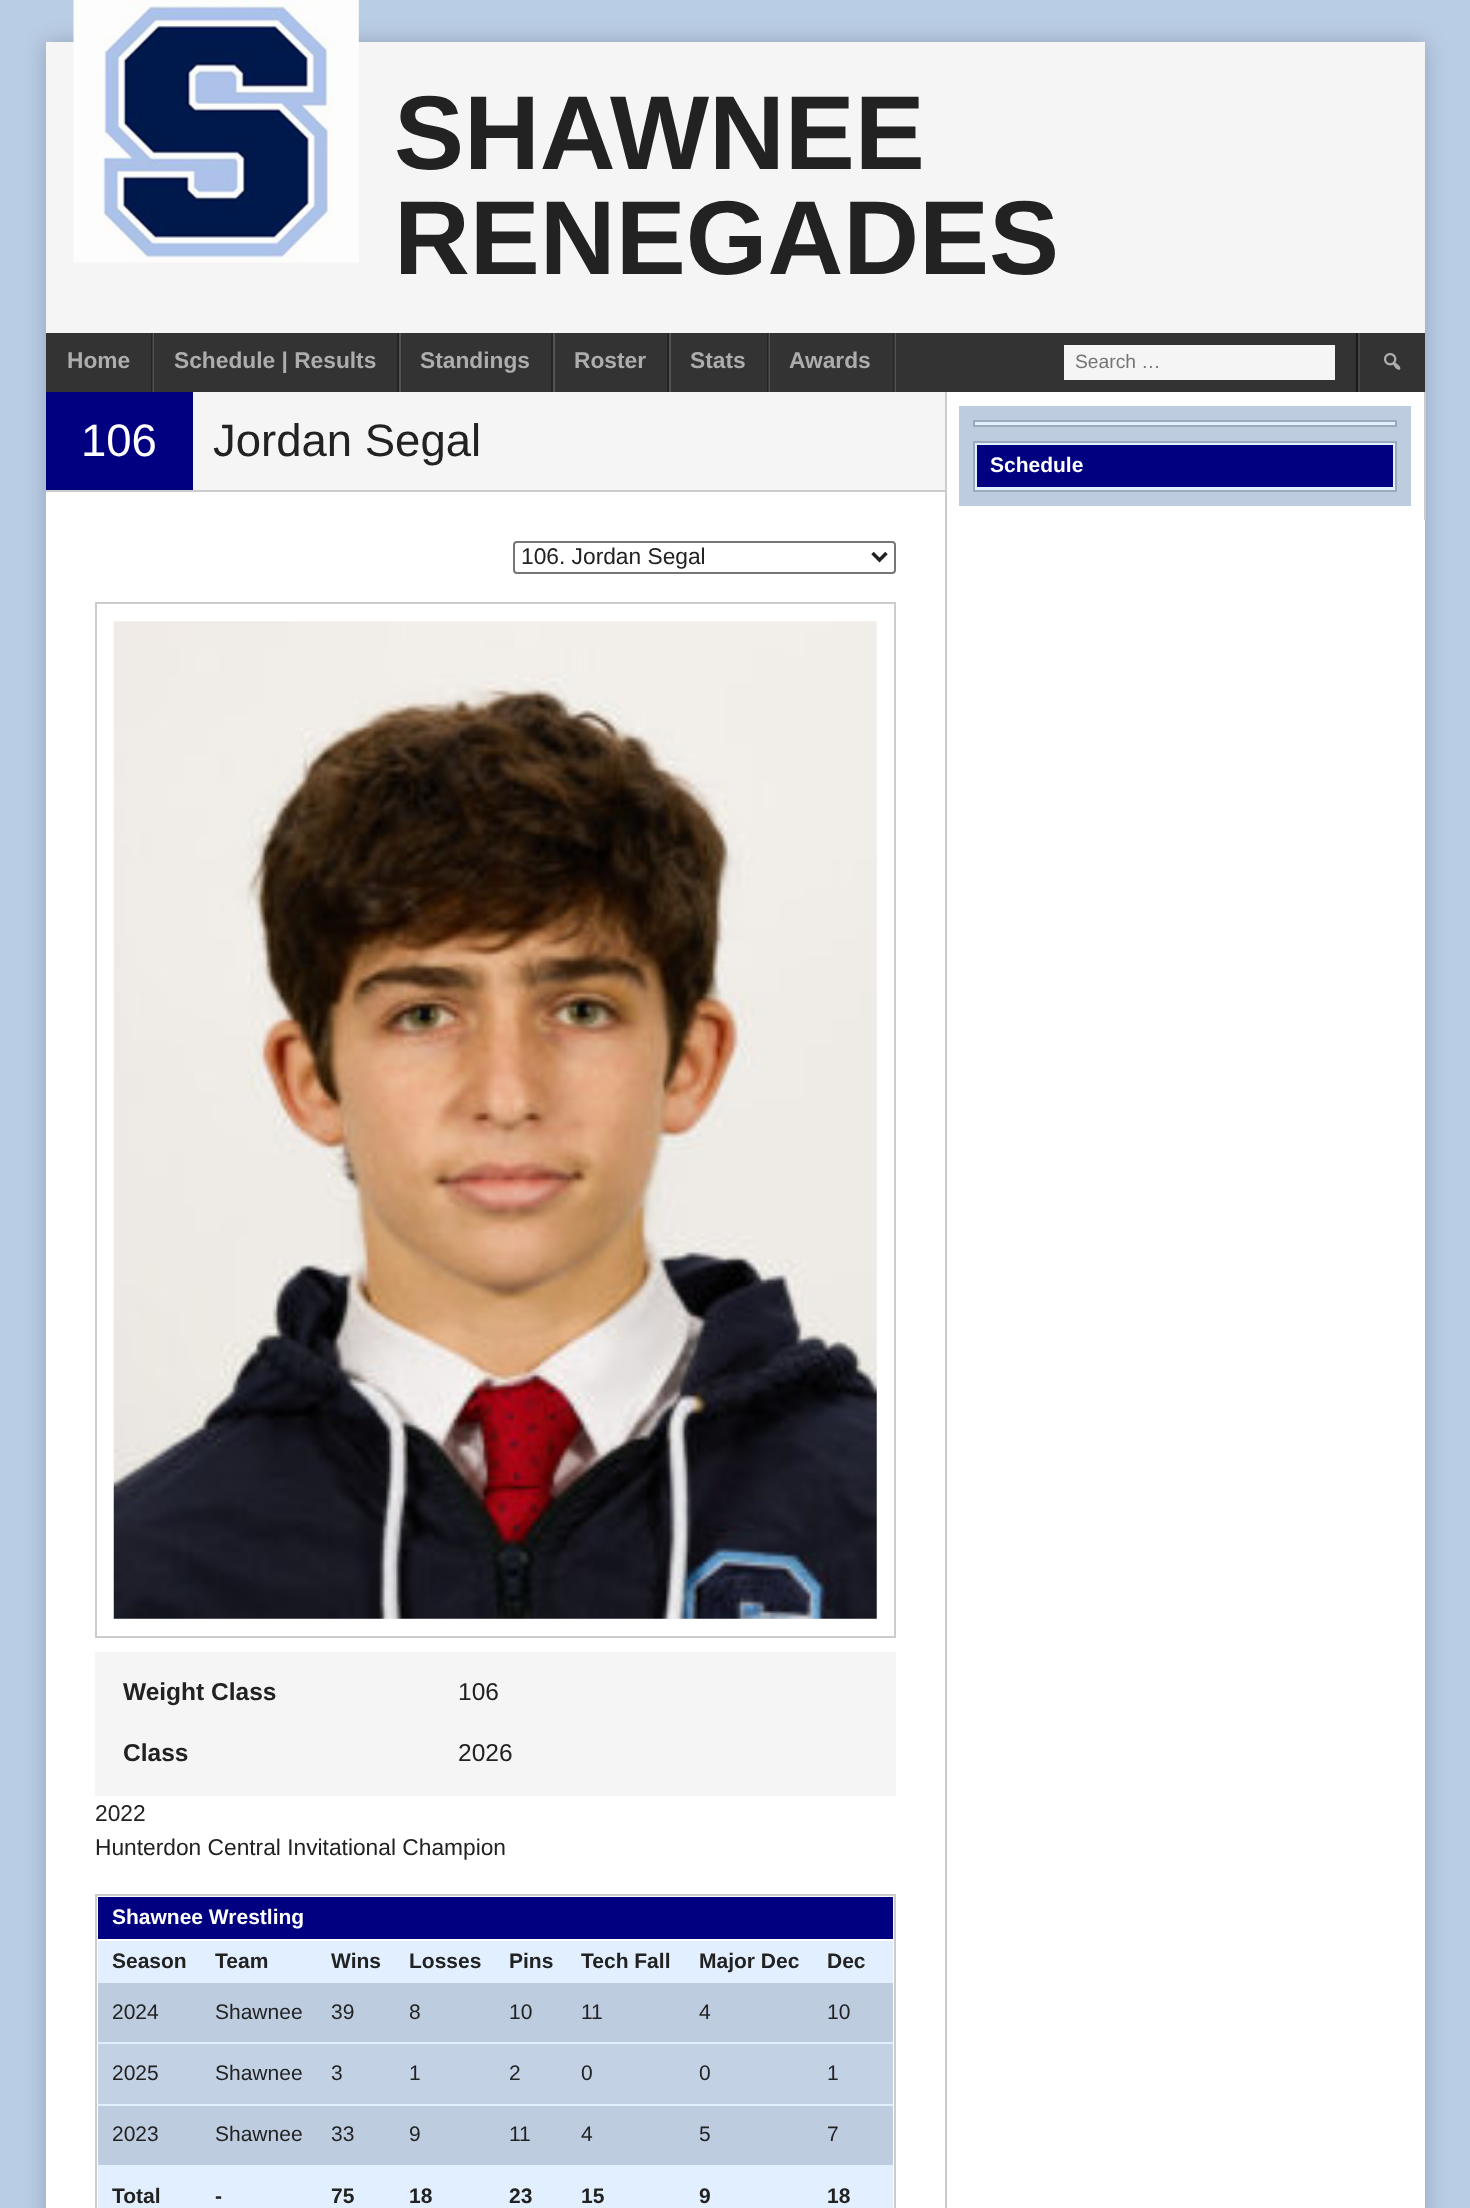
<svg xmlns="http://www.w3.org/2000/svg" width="1470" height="2208">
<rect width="100%" height="100%" fill="#b9cde5"/>
<rect x="46" y="42" width="1379" height="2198" fill="#00000033" filter="blur(10.5px)"/>
<rect x="46" y="42" width="1379" height="291" fill="#f5f5f5"/>
<image x="73" y="0" width="286" height="263" href="media/1.png"/>
<text x="394" y="169" style="font-family:Liberation Sans;font-size:105px;font-weight:bold;fill:#222">SHAWNEE</text>
<text x="394" y="274" style="font-family:Liberation Sans;font-size:105px;font-weight:bold;fill:#222">RENEGADES</text>
<rect x="46" y="333" width="1379" height="59" fill="#333"/>
<rect x="893" y="333" width="1" height="59" fill="#242424"/>
<rect x="767" y="333" width="1" height="59" fill="#242424"/>
<rect x="151" y="333" width="1" height="59" fill="#242424"/>
<rect x="153" y="333" width="1" height="59" fill="#525252"/>
<rect x="152" y="333" width="1" height="59" fill="#393939"/>
<text x="67" y="368" style="font-family:Liberation Sans;font-size:22.75px;font-weight:bold;fill:#adadad">Home</text>
<rect x="399" y="333" width="2" height="59" fill="#525252"/>
<rect x="397" y="333" width="2" height="59" fill="#242424"/>
<text x="174" y="368" style="font-family:Liberation Sans;font-size:22.75px;font-weight:bold;fill:#adadad">Schedule | Results</text>
<rect x="553" y="333" width="2" height="59" fill="#525252"/>
<rect x="551" y="333" width="2" height="59" fill="#242424"/>
<text x="420" y="368" style="font-family:Liberation Sans;font-size:22.75px;font-weight:bold;fill:#adadad">Standings</text>
<rect x="669" y="333" width="2" height="59" fill="#525252"/>
<rect x="667" y="333" width="2" height="59" fill="#242424"/>
<text x="574" y="368" style="font-family:Liberation Sans;font-size:22.75px;font-weight:bold;fill:#adadad">Roster</text>
<rect x="769" y="333" width="1" height="59" fill="#525252"/>
<rect x="768" y="333" width="1" height="59" fill="#393939"/>
<text x="690" y="368" style="font-family:Liberation Sans;font-size:22.75px;font-weight:bold;fill:#adadad">Stats</text>
<rect x="895" y="333" width="1" height="59" fill="#525252"/>
<rect x="894" y="333" width="1" height="59" fill="#393939"/>
<text x="789" y="368" style="font-family:Liberation Sans;font-size:22.75px;font-weight:bold;fill:#adadad">Awards</text>
<rect x="1356" y="333" width="2" height="59" fill="#1a1a1a"/>
<rect x="1064" y="345" width="271" height="35" fill="#f5f5f5"/>
<text x="1075" y="368" style="font-family:Liberation Sans;font-size:19.25px;fill:#757575">Search …</text>
<rect x="1358" y="333" width="2" height="59" fill="#454545"/>
<image x="1383" y="353" width="18" height="17" href="media/2.png"/>
<rect x="46" y="392" width="1379" height="1816" fill="#fff"/>
<path d="M47 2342h900v-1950h-2v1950z" fill="#ccc"/>
<rect x="193" y="392" width="752" height="98" fill="#f5f5f5"/>
<rect x="46" y="490" width="899" height="2" fill="#ccc"/>
<rect x="46" y="392" width="147" height="98" fill="#000080"/>
<text x="81" y="456" style="font-family:Liberation Sans;font-size:45.5px;fill:#fff">106</text>
<text x="213" y="456" style="font-family:Liberation Sans;font-size:45.5px;fill:#222">Jordan Segal</text>
<rect x="514" y="542" width="381" height="31" rx="3" fill="none" stroke="#767676" stroke-width="2"/>
<path d="M872.5 553l7 7l7-7" fill="none" stroke="#222" stroke-width="3.5"/>
<text x="521" y="564" style="font-family:Liberation Sans;font-size:22.75px;fill:#222">106. Jordan Segal</text>
<rect x="96" y="603" width="799" height="1034" fill="none" stroke="#ccc" stroke-width="2"/>
<image x="113" y="621" width="764" height="998" href="media/3.png"/>
<rect x="95" y="1652" width="801" height="144" fill="#f5f5f5"/>
<text x="123" y="1700" style="font-family:Liberation Sans;font-size:24.5px;font-weight:bold;fill:#222">Weight Class</text>
<text x="458" y="1700" style="font-family:Liberation Sans;font-size:24.5px;fill:#222">106</text>
<text x="123" y="1761" style="font-family:Liberation Sans;font-size:24.5px;font-weight:bold;fill:#222">Class</text>
<text x="458" y="1761" style="font-family:Liberation Sans;font-size:24.5px;fill:#222">2026</text>
<text x="95" y="1821" style="font-family:Liberation Sans;font-size:22.75px;fill:#222">2022</text>
<text x="95" y="1855" style="font-family:Liberation Sans;font-size:22.75px;fill:#222">Hunterdon Central Invitational Champion</text>
<rect x="96" y="1895" width="799" height="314" fill="none" stroke="#ccc" stroke-width="2"/>
<rect x="98" y="1897" width="795" height="42" fill="#000080"/>
<text x="112" y="1924" style="font-family:Liberation Sans;font-size:21px;font-weight:bold;fill:#fff">Shawnee Wrestling</text>
<rect x="98" y="1941" width="795" height="42" fill="#e1efff"/>
<text x="112" y="1968" style="font-family:Liberation Sans;font-size:21px;font-weight:bold;fill:#222">Season</text>
<text x="215" y="1968" style="font-family:Liberation Sans;font-size:21px;font-weight:bold;fill:#222">Team</text>
<text x="331" y="1968" style="font-family:Liberation Sans;font-size:21px;font-weight:bold;fill:#222">Wins</text>
<text x="409" y="1968" style="font-family:Liberation Sans;font-size:21px;font-weight:bold;fill:#222">Losses</text>
<text x="509" y="1968" style="font-family:Liberation Sans;font-size:21px;font-weight:bold;fill:#222">Pins</text>
<text x="581" y="1968" style="font-family:Liberation Sans;font-size:21px;font-weight:bold;fill:#222">Tech Fall</text>
<text x="699" y="1968" style="font-family:Liberation Sans;font-size:21px;font-weight:bold;fill:#222">Major Dec</text>
<text x="827" y="1968" style="font-family:Liberation Sans;font-size:21px;font-weight:bold;fill:#222">Dec</text>
<rect x="98" y="1983" width="795" height="59" fill="#becce0"/>
<text x="112" y="2019" style="font-family:Liberation Sans;font-size:21px;fill:#222">2024</text>
<text x="215" y="2019" style="font-family:Liberation Sans;font-size:21px;fill:#222">Shawnee</text>
<text x="331" y="2019" style="font-family:Liberation Sans;font-size:21px;fill:#222">39</text>
<text x="409" y="2019" style="font-family:Liberation Sans;font-size:21px;fill:#222">8</text>
<text x="509" y="2019" style="font-family:Liberation Sans;font-size:21px;fill:#222">10</text>
<text x="581" y="2019" style="font-family:Liberation Sans;font-size:21px;fill:#222">11</text>
<text x="699" y="2019" style="font-family:Liberation Sans;font-size:21px;fill:#222">4</text>
<text x="827" y="2019" style="font-family:Liberation Sans;font-size:21px;fill:#222">10</text>
<rect x="98" y="2042" width="795" height="2" fill="#e1efff"/>
<rect x="98" y="2044" width="795" height="60" fill="#c3d1e5"/>
<text x="112" y="2080" style="font-family:Liberation Sans;font-size:21px;fill:#222">2025</text>
<text x="215" y="2080" style="font-family:Liberation Sans;font-size:21px;fill:#222">Shawnee</text>
<text x="331" y="2080" style="font-family:Liberation Sans;font-size:21px;fill:#222">3</text>
<text x="409" y="2080" style="font-family:Liberation Sans;font-size:21px;fill:#222">1</text>
<text x="509" y="2080" style="font-family:Liberation Sans;font-size:21px;fill:#222">2</text>
<text x="581" y="2080" style="font-family:Liberation Sans;font-size:21px;fill:#222">0</text>
<text x="699" y="2080" style="font-family:Liberation Sans;font-size:21px;fill:#222">0</text>
<text x="827" y="2080" style="font-family:Liberation Sans;font-size:21px;fill:#222">1</text>
<rect x="98" y="2104" width="795" height="2" fill="#e1efff"/>
<rect x="98" y="2106" width="795" height="59" fill="#becce0"/>
<text x="112" y="2141" style="font-family:Liberation Sans;font-size:21px;fill:#222">2023</text>
<text x="215" y="2141" style="font-family:Liberation Sans;font-size:21px;fill:#222">Shawnee</text>
<text x="331" y="2141" style="font-family:Liberation Sans;font-size:21px;fill:#222">33</text>
<text x="409" y="2141" style="font-family:Liberation Sans;font-size:21px;fill:#222">9</text>
<text x="509" y="2141" style="font-family:Liberation Sans;font-size:21px;fill:#222">11</text>
<text x="581" y="2141" style="font-family:Liberation Sans;font-size:21px;fill:#222">4</text>
<text x="699" y="2141" style="font-family:Liberation Sans;font-size:21px;fill:#222">5</text>
<text x="827" y="2141" style="font-family:Liberation Sans;font-size:21px;fill:#222">7</text>
<rect x="98" y="2165" width="795" height="43" fill="#e1efff"/>
<text x="112" y="2203" style="font-family:Liberation Sans;font-size:21px;font-weight:bold;fill:#222">Total</text>
<text x="215" y="2203" style="font-family:Liberation Sans;font-size:21px;font-weight:bold;fill:#222">-</text>
<text x="331" y="2203" style="font-family:Liberation Sans;font-size:21px;font-weight:bold;fill:#222">75</text>
<text x="409" y="2203" style="font-family:Liberation Sans;font-size:21px;font-weight:bold;fill:#222">18</text>
<text x="509" y="2203" style="font-family:Liberation Sans;font-size:21px;font-weight:bold;fill:#222">23</text>
<text x="581" y="2203" style="font-family:Liberation Sans;font-size:21px;font-weight:bold;fill:#222">15</text>
<text x="699" y="2203" style="font-family:Liberation Sans;font-size:21px;font-weight:bold;fill:#222">9</text>
<text x="827" y="2203" style="font-family:Liberation Sans;font-size:21px;font-weight:bold;fill:#222">18</text>
<path d="M947 520h479v-128h-2v128z" fill="#ccc"/>
<rect x="974" y="421" width="422" height="5" fill="#e1efff" stroke="#9ba9bd" stroke-width="2"/>
<rect x="966" y="413" width="438" height="21" fill="none" stroke="#becce0" stroke-width="14"/>
<rect x="974" y="442" width="422" height="49" fill="#e1efff" stroke="#9ba9bd" stroke-width="2"/>
<rect x="966" y="434" width="438" height="65" fill="none" stroke="#becce0" stroke-width="14"/>
<rect x="977" y="445" width="416" height="42" fill="#000080"/>
<text x="990" y="472" style="font-family:Liberation Sans;font-size:21px;font-weight:bold;fill:#fff">Schedule</text>
</svg>
